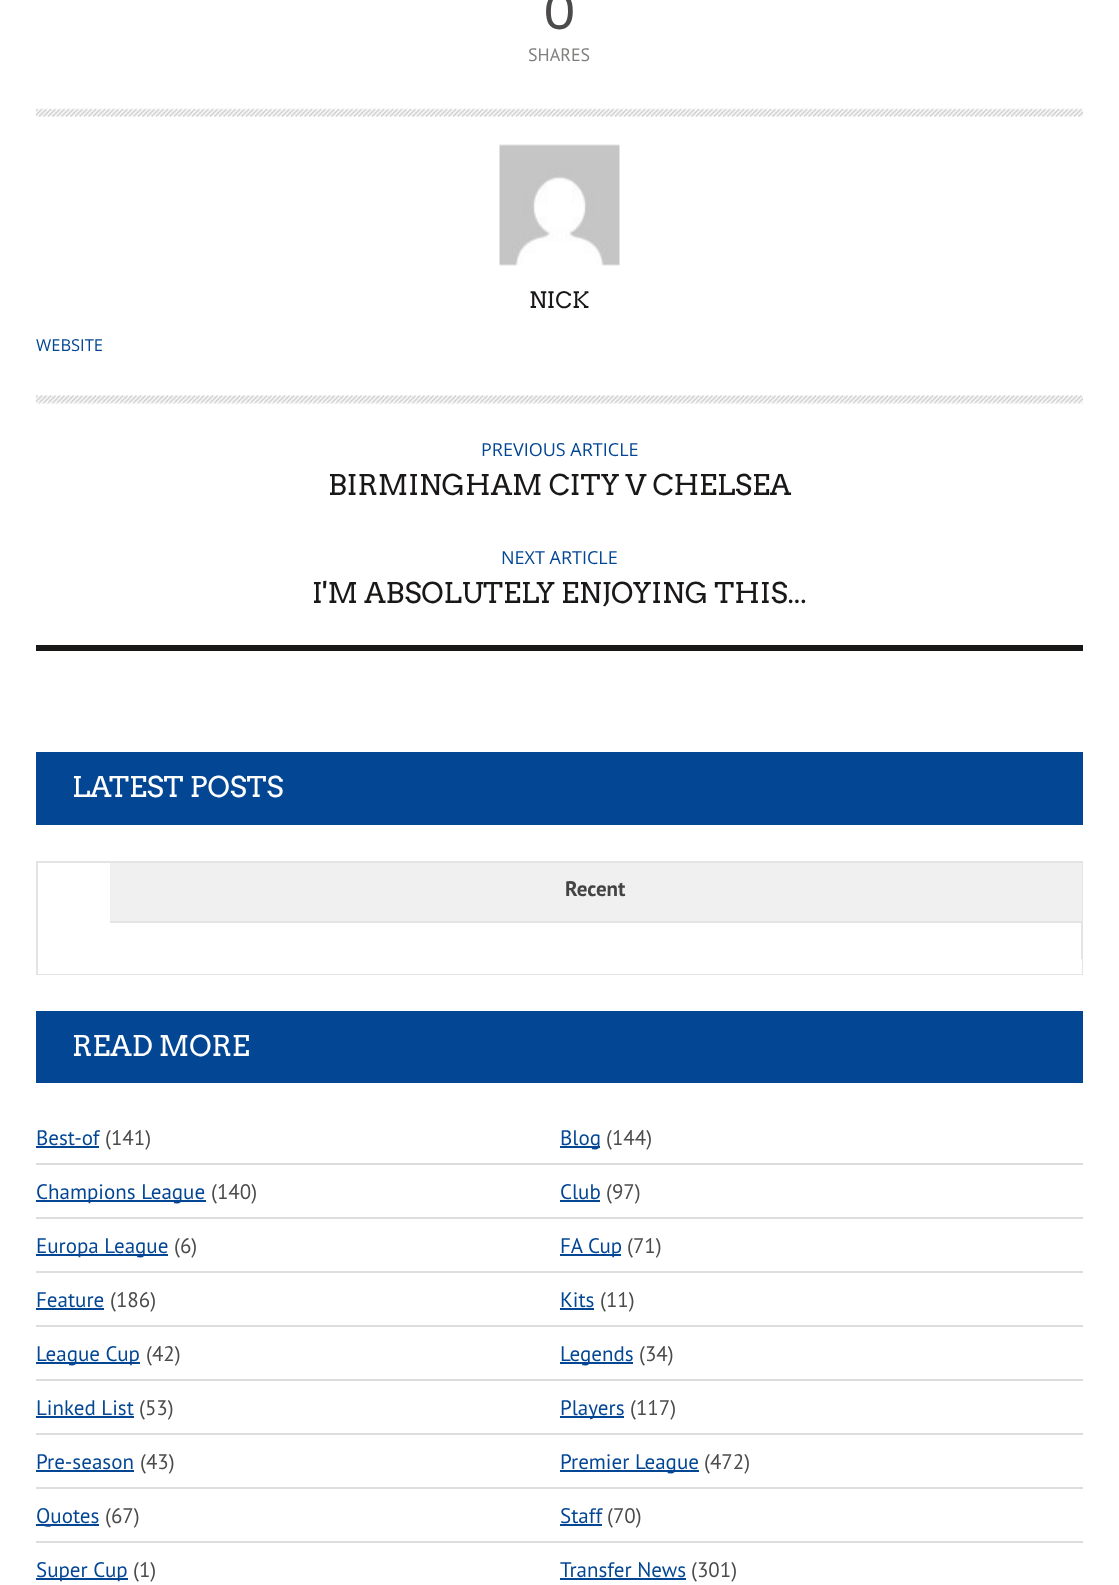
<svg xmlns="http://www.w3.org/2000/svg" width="1119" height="1585">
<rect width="100%" height="100%" fill="#fff"/>
<text x="544" y="29" style="font-family:Arvo;font-size:48px;fill:#4c4a4a">0</text>
<text x="528" y="61" style="font-family:PT Sans;font-size:18px;fill:#807f7e">SHARES</text>
<image x="36" y="108" width="1047" height="9" href="media/1.png"/>
<image x="499" y="144" width="121" height="122" href="media/2.png"/>
<text x="529" y="308" style="font-family:Arvo;font-size:22.5px;fill:#1a1717">NICK</text>
<text x="36" y="351" style="font-family:Open Sans;font-size:16.5px;fill:#034694">WEBSITE</text>
<image x="36" y="395" width="1047" height="9" href="media/3.png"/>
<text x="481" y="456" style="font-family:Open Sans;font-size:18px;fill:#034694">PREVIOUS ARTICLE</text>
<text x="328" y="495" style="font-family:Arvo;font-size:28.5px;fill:#1a1717">BIRMINGHAM CITY V CHELSEA</text>
<text x="501" y="564" style="font-family:Open Sans;font-size:18px;fill:#034694">NEXT ARTICLE</text>
<text x="312" y="603" style="font-family:Arvo;font-size:28.5px;fill:#1a1717">I'M ABSOLUTELY ENJOYING THIS...</text>
<rect x="36" y="645" width="1047" height="6" fill="#1a1717"/>
<rect x="36" y="752" width="1047" height="73" fill="#034694"/>
<text x="72" y="797" style="font-family:Arvo;font-size:28.5px;fill:#fff">LATEST POSTS</text>
<rect x="37" y="862" width="1045" height="112" fill="none" stroke="#e4e4e4" stroke-width="2"/>
<rect x="110" y="863" width="972" height="58" fill="#f0f0f0"/>
<rect x="110" y="921" width="972" height="2" fill="#e4e4e4"/>
<text x="565" y="896" style="font-family:PT Sans;font-size:21px;font-weight:bold;fill:#444">Recent</text>
<rect x="38" y="959" width="1044" height="15" fill="#fff"/>
<rect x="36" y="1011" width="1047" height="72" fill="#034694"/>
<text x="72" y="1056" style="font-family:Arvo;font-size:28.5px;fill:#fff">READ MORE</text>
<text x="36" y="1145" style="font-family:PT Sans;font-size:21px;fill:#034694">Best-of</text>
<rect x="36" y="1146" width="63" height="2" fill="#034694"/>
<text x="105" y="1145" style="font-family:PT Sans;font-size:21px;fill:#4c4a4a">(141)</text>
<rect x="560" y="1146" width="40" height="2" fill="#034694"/>
<text x="560" y="1145" style="font-family:PT Sans;font-size:21px;fill:#034694">Blog</text>
<text x="606" y="1145" style="font-family:PT Sans;font-size:21px;fill:#4c4a4a">(144)</text>
<rect x="36" y="1163" width="1047" height="2" fill="#ddd"/>
<rect x="36" y="1200" width="170" height="2" fill="#034694"/>
<text x="36" y="1199" style="font-family:PT Sans;font-size:21px;fill:#034694">Champions League</text>
<text x="211" y="1199" style="font-family:PT Sans;font-size:21px;fill:#4c4a4a">(140)</text>
<text x="560" y="1199" style="font-family:PT Sans;font-size:21px;fill:#034694">Club</text>
<rect x="560" y="1200" width="40" height="2" fill="#034694"/>
<text x="606" y="1199" style="font-family:PT Sans;font-size:21px;fill:#4c4a4a">(97)</text>
<rect x="36" y="1217" width="1047" height="2" fill="#ddd"/>
<rect x="36" y="1254" width="132" height="2" fill="#034694"/>
<text x="36" y="1253" style="font-family:PT Sans;font-size:21px;fill:#034694">Europa League</text>
<text x="174" y="1253" style="font-family:PT Sans;font-size:21px;fill:#4c4a4a">(6)</text>
<rect x="560" y="1254" width="61" height="2" fill="#034694"/>
<text x="560" y="1253" style="font-family:PT Sans;font-size:21px;fill:#034694">FA Cup</text>
<text x="627" y="1253" style="font-family:PT Sans;font-size:21px;fill:#4c4a4a">(71)</text>
<rect x="36" y="1271" width="1047" height="2" fill="#ddd"/>
<text x="36" y="1307" style="font-family:PT Sans;font-size:21px;fill:#034694">Feature</text>
<rect x="36" y="1308" width="68" height="2" fill="#034694"/>
<text x="110" y="1307" style="font-family:PT Sans;font-size:21px;fill:#4c4a4a">(186)</text>
<text x="560" y="1307" style="font-family:PT Sans;font-size:21px;fill:#034694">Kits</text>
<rect x="560" y="1308" width="34" height="2" fill="#034694"/>
<text x="600" y="1307" style="font-family:PT Sans;font-size:21px;fill:#4c4a4a">(11)</text>
<rect x="36" y="1325" width="1047" height="2" fill="#ddd"/>
<rect x="36" y="1362" width="104" height="2" fill="#034694"/>
<text x="36" y="1361" style="font-family:PT Sans;font-size:21px;fill:#034694">League Cup</text>
<text x="146" y="1361" style="font-family:PT Sans;font-size:21px;fill:#4c4a4a">(42)</text>
<rect x="560" y="1362" width="73" height="2" fill="#034694"/>
<text x="560" y="1361" style="font-family:PT Sans;font-size:21px;fill:#034694">Legends</text>
<text x="639" y="1361" style="font-family:PT Sans;font-size:21px;fill:#4c4a4a">(34)</text>
<rect x="36" y="1379" width="1047" height="2" fill="#ddd"/>
<text x="36" y="1415" style="font-family:PT Sans;font-size:21px;fill:#034694">Linked List</text>
<rect x="36" y="1416" width="98" height="2" fill="#034694"/>
<text x="139" y="1415" style="font-family:PT Sans;font-size:21px;fill:#4c4a4a">(53)</text>
<rect x="560" y="1416" width="64" height="2" fill="#034694"/>
<text x="560" y="1415" style="font-family:PT Sans;font-size:21px;fill:#034694">Players</text>
<text x="630" y="1415" style="font-family:PT Sans;font-size:21px;fill:#4c4a4a">(117)</text>
<rect x="36" y="1433" width="1047" height="2" fill="#ddd"/>
<text x="36" y="1469" style="font-family:PT Sans;font-size:21px;fill:#034694">Pre-season</text>
<rect x="36" y="1470" width="98" height="2" fill="#034694"/>
<text x="140" y="1469" style="font-family:PT Sans;font-size:21px;fill:#4c4a4a">(43)</text>
<rect x="560" y="1470" width="139" height="2" fill="#034694"/>
<text x="560" y="1469" style="font-family:PT Sans;font-size:21px;fill:#034694">Premier League</text>
<text x="704" y="1469" style="font-family:PT Sans;font-size:21px;fill:#4c4a4a">(472)</text>
<rect x="36" y="1487" width="1047" height="2" fill="#ddd"/>
<rect x="36" y="1524" width="63" height="2" fill="#034694"/>
<text x="36" y="1523" style="font-family:PT Sans;font-size:21px;fill:#034694">Quotes</text>
<text x="105" y="1523" style="font-family:PT Sans;font-size:21px;fill:#4c4a4a">(67)</text>
<text x="560" y="1523" style="font-family:PT Sans;font-size:21px;fill:#034694">Staff</text>
<rect x="560" y="1524" width="42" height="2" fill="#034694"/>
<text x="607" y="1523" style="font-family:PT Sans;font-size:21px;fill:#4c4a4a">(70)</text>
<rect x="36" y="1541" width="1047" height="2" fill="#ddd"/>
<rect x="36" y="1578" width="92" height="2" fill="#034694"/>
<text x="36" y="1577" style="font-family:PT Sans;font-size:21px;fill:#034694">Super Cup</text>
<text x="133" y="1577" style="font-family:PT Sans;font-size:21px;fill:#4c4a4a">(1)</text>
<text x="560" y="1577" style="font-family:PT Sans;font-size:21px;fill:#034694">Transfer News</text>
<rect x="560" y="1578" width="126" height="2" fill="#034694"/>
<text x="691" y="1577" style="font-family:PT Sans;font-size:21px;fill:#4c4a4a">(301)</text>
</svg>
